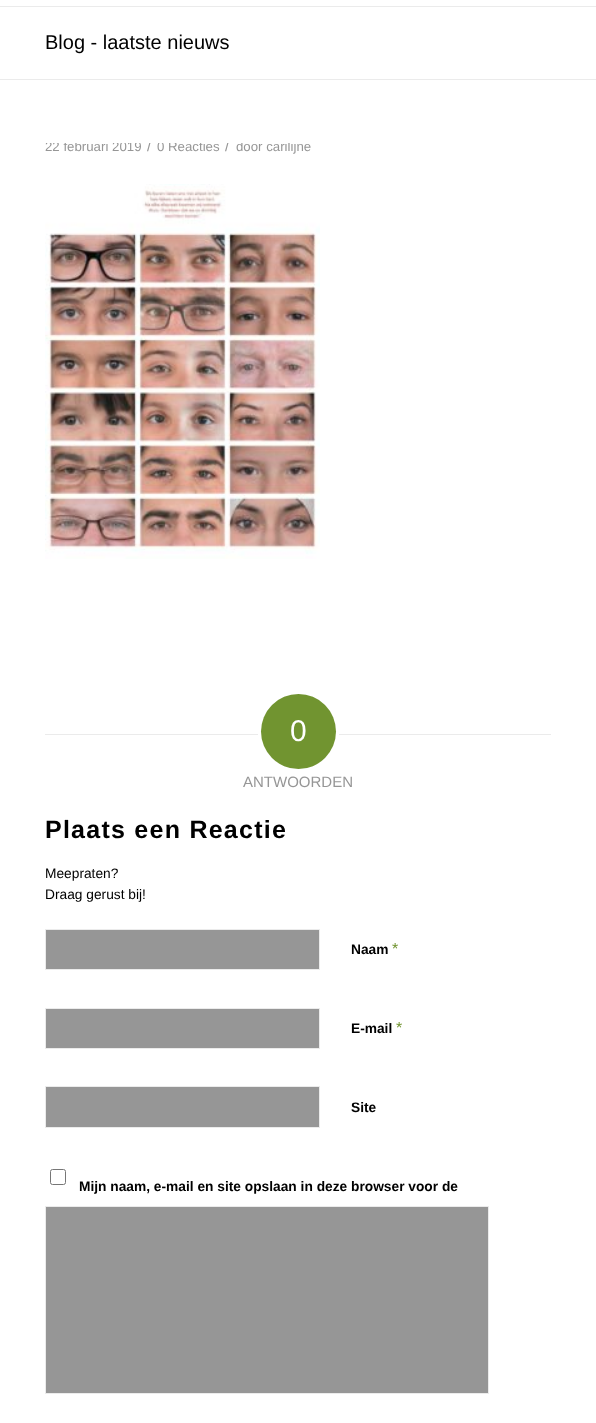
<svg xmlns="http://www.w3.org/2000/svg" width="596" height="1423">
<defs>
<clipPath id="clip1"><rect x="45" y="143" width="506" height="551"/></clipPath>
</defs>
<rect width="100%" height="100%" fill="#fff"/>
<rect y="6" width="596" height="1" fill="#ebebeb"/>
<text x="45" y="49" style="font-family:Liberation Sans;font-size:20px;fill:#000">Blog - laatste nieuws</text>
<rect y="79" width="596" height="1" fill="#ebebeb"/>
<g clip-path="url(#clip1)">
<text x="45" y="151" style="font-family:Liberation Sans;font-size:13.25px;fill:#969696">22 februari 2019</text>
<text x="147" y="151" style="font-family:Liberation Sans;font-size:15px;fill:#969696">/</text>
<text x="157" y="151" style="font-family:Liberation Sans;font-size:13.25px;fill:#969696">0 Reacties</text>
<text x="225" y="151" style="font-family:Liberation Sans;font-size:15px;fill:#969696">/</text>
<text x="236" y="151" style="font-family:Liberation Sans;font-size:13.25px;fill:#969696">door carilijne</text>
</g>
<image x="45" y="184" width="275" height="375" href="media/1.png"/>
<rect x="45" y="734" width="213" height="1" fill="#ebebeb"/>
<circle cx="298.5" cy="731.5" r="37.5" fill="#719430"/>
<text x="290" y="741" style="font-family:Liberation Sans;font-size:30px;fill:#fff">0</text>
<rect x="339" y="734" width="212" height="1" fill="#ebebeb"/>
<text x="243" y="787" style="font-family:Liberation Sans;font-size:15px;fill:#969696">ANTWOORDEN</text>
<text x="45" y="838" style="font-family:Liberation Sans;font-size:25px;font-weight:bold;letter-spacing:1.25px;fill:#000">Plaats een Reactie</text>
<text x="45" y="878" style="font-family:Liberation Sans;font-size:13.75px;fill:#000">Meepraten?</text>
<text x="45" y="899" style="font-family:Liberation Sans;font-size:13.75px;fill:#000">Draag gerust bij!</text>
<rect x="45.5" y="929.5" width="274" height="40" fill="#969696" stroke="#ebebeb"/>
<text x="351" y="954" style="font-family:Liberation Sans;font-size:13.75px;font-weight:bold;fill:#000">Naam</text>
<text x="392" y="954" style="font-family:Liberation Sans;font-size:16px;fill:#719430">*</text>
<rect x="45.5" y="1008.5" width="274" height="40" fill="#969696" stroke="#ebebeb"/>
<text x="351" y="1033" style="font-family:Liberation Sans;font-size:13.75px;font-weight:bold;fill:#000">E-mail</text>
<text x="396" y="1033" style="font-family:Liberation Sans;font-size:16px;fill:#719430">*</text>
<rect x="45.5" y="1086.5" width="274" height="41" fill="#969696" stroke="#ebebeb"/>
<text x="351" y="1112" style="font-family:Liberation Sans;font-size:13.75px;font-weight:bold;fill:#000">Site</text>
<rect x="50.5" y="1169.5" width="15" height="15" rx="2" fill="none" stroke="#767676"/>
<text x="79" y="1191" style="font-family:Liberation Sans;font-size:13.75px;font-weight:bold;fill:#000">Mijn naam, e-mail en site opslaan in deze browser voor de</text>
<rect x="45.5" y="1206.5" width="443" height="187" fill="#969696" stroke="#ebebeb"/>
</svg>
